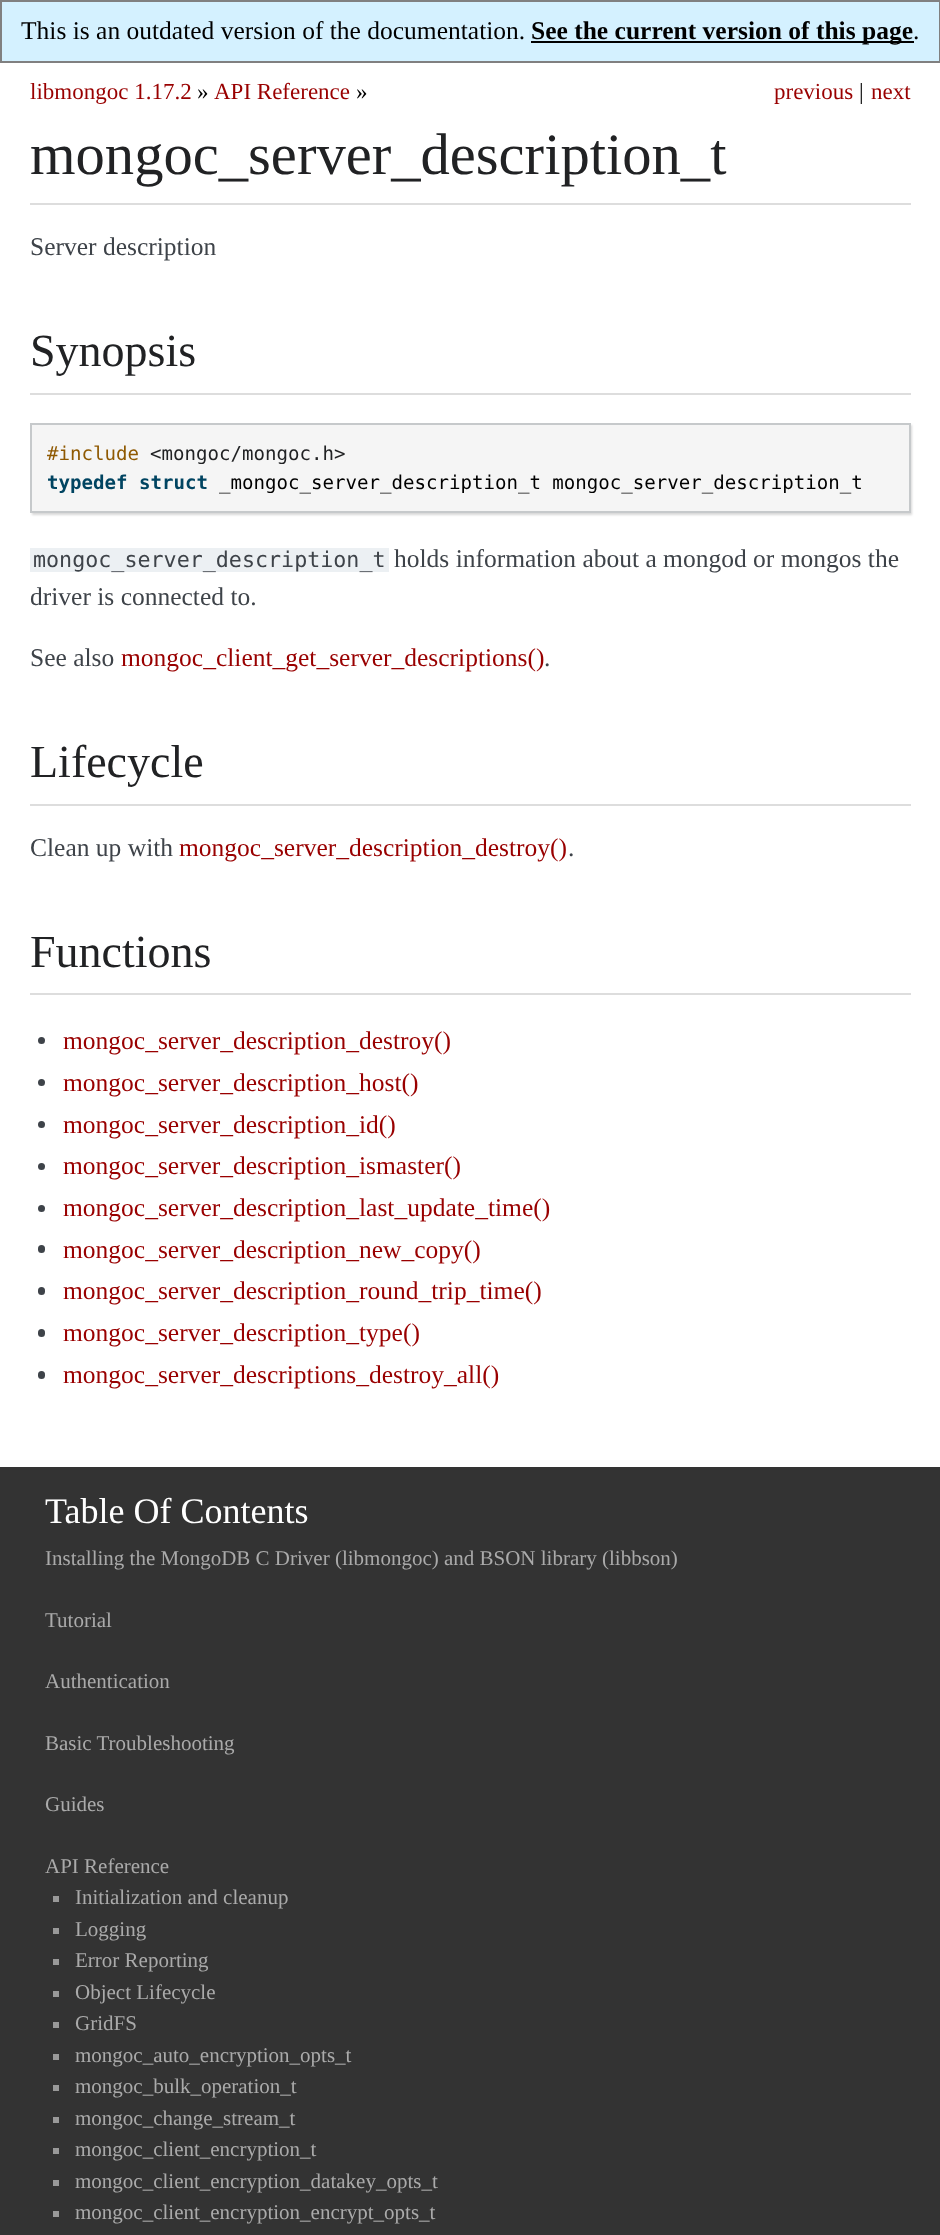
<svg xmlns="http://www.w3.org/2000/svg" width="940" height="2235">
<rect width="100%" height="100%" fill="#fff"/>
<rect x="1" y="1" width="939" height="61" fill="#d4f1ff" stroke="#808080" stroke-width="2"/>
<text x="21" y="39" style="font-family:Liberation Serif;font-size:25.5px;fill:#000">This is an outdated version of the documentation.</text>
<rect x="531" y="41" width="383" height="2" fill="#000"/>
<text x="531" y="39" style="font-family:Liberation Serif;font-size:25.5px;font-weight:bold;fill:#000">See the current version of this page</text>
<text x="913" y="39" style="font-family:Liberation Serif;font-size:25.5px;fill:#000">.</text>
<text x="30" y="99" style="font-family:Liberation Serif;font-size:23px;fill:#900">libmongoc 1.17.2</text>
<text x="197" y="99" style="font-family:Liberation Serif;font-size:23px;fill:#000">»</text>
<text x="214" y="99" style="font-family:Liberation Serif;font-size:23px;fill:#900">API Reference</text>
<text x="356" y="99" style="font-family:Liberation Serif;font-size:23px;fill:#000">»</text>
<text x="774" y="99" style="font-family:Liberation Serif;font-size:23px;fill:#900">previous</text>
<text x="859" y="99" style="font-family:Liberation Serif;font-size:23px;fill:#000">|</text>
<text x="871" y="99" style="font-family:Liberation Serif;font-size:23px;fill:#900">next</text>
<rect x="30" y="203" width="881" height="2" fill="#ddd"/>
<text x="30" y="174" style="font-family:Liberation Serif;font-size:58.6px;fill:#212224">mongoc_server_description_t</text>
<text x="30" y="255" style="font-family:Liberation Serif;font-size:25.5px;fill:#3e4349">Server description</text>
<rect x="30" y="393" width="881" height="2" fill="#ddd"/>
<text x="30" y="366" style="font-family:Liberation Serif;font-size:46px;fill:#212224">Synopsis</text>
<rect x="32" y="425" width="880" height="90" fill="#d8d8d8" filter="blur(1px)"/>
<rect x="31" y="424" width="879" height="88" fill="#f5f5f5" stroke="#c6c9cb" stroke-width="2"/>
<text x="47" y="460" style="font-family:DejaVu Sans Mono;font-size:19.1px;fill:#8f5902">#include</text>
<text x="150" y="460" style="font-family:DejaVu Sans Mono;font-size:19.1px;fill:#212224">&lt;mongoc/mongoc.h&gt;</text>
<text x="47" y="489" style="font-family:DejaVu Sans Mono;font-size:19.1px;font-weight:bold;fill:#004461">typedef struct</text>
<text x="219" y="489" style="font-family:DejaVu Sans Mono;font-size:19.1px;fill:#000">_mongoc_server_description_t mongoc_server_description_t</text>
<rect x="30" y="548" width="359" height="24" fill="#ecf0f3"/>
<text x="33" y="567" style="font-family:DejaVu Sans Mono;font-size:21.7px;fill:#3e4349">mongoc_server_description_t</text>
<text x="394" y="567" style="font-family:Liberation Serif;font-size:25.5px;fill:#3e4349">holds information about a mongod or mongos the</text>
<text x="30" y="605" style="font-family:Liberation Serif;font-size:25.5px;fill:#3e4349">driver is connected to.</text>
<text x="30" y="666" style="font-family:Liberation Serif;font-size:25.5px;fill:#3e4349">See also</text>
<text x="121" y="666" style="font-family:Liberation Serif;font-size:25.5px;fill:#900">mongoc_client_get_server_descriptions()</text>
<text x="544" y="666" style="font-family:Liberation Serif;font-size:25.5px;fill:#3e4349">.</text>
<rect x="30" y="804" width="881" height="2" fill="#ddd"/>
<text x="30" y="777" style="font-family:Liberation Serif;font-size:46px;fill:#212224">Lifecycle</text>
<text x="30" y="856" style="font-family:Liberation Serif;font-size:25.5px;fill:#3e4349">Clean up with</text>
<text x="179" y="856" style="font-family:Liberation Serif;font-size:25.5px;fill:#900">mongoc_server_description_destroy()</text>
<text x="568" y="856" style="font-family:Liberation Serif;font-size:25.5px;fill:#3e4349">.</text>
<rect x="30" y="993" width="881" height="2" fill="#ddd"/>
<text x="30" y="967" style="font-family:Liberation Serif;font-size:46px;fill:#212224">Functions</text>
<circle cx="41.5" cy="1040.5" r="3.5" fill="#3e4349"/>
<text x="63" y="1049" style="font-family:Liberation Serif;font-size:25.5px;fill:#900">mongoc_server_description_destroy()</text>
<circle cx="41.5" cy="1082.5" r="3.5" fill="#3e4349"/>
<text x="63" y="1091" style="font-family:Liberation Serif;font-size:25.5px;fill:#900">mongoc_server_description_host()</text>
<circle cx="41.5" cy="1124.5" r="3.5" fill="#3e4349"/>
<text x="63" y="1133" style="font-family:Liberation Serif;font-size:25.5px;fill:#900">mongoc_server_description_id()</text>
<circle cx="41.5" cy="1166.5" r="3.5" fill="#3e4349"/>
<text x="63" y="1174" style="font-family:Liberation Serif;font-size:25.5px;fill:#900">mongoc_server_description_ismaster()</text>
<circle cx="41.5" cy="1208.5" r="3.5" fill="#3e4349"/>
<text x="63" y="1216" style="font-family:Liberation Serif;font-size:25.5px;fill:#900">mongoc_server_description_last_update_time()</text>
<rect x="38" y="1245" width="7" height="8" rx="3.5" fill="#3e4349"/>
<text x="63" y="1258" style="font-family:Liberation Serif;font-size:25.5px;fill:#900">mongoc_server_description_new_copy()</text>
<rect x="38" y="1287" width="7" height="8" rx="3.5" fill="#3e4349"/>
<text x="63" y="1299" style="font-family:Liberation Serif;font-size:25.5px;fill:#900">mongoc_server_description_round_trip_time()</text>
<rect x="38" y="1329" width="7" height="8" rx="3.5" fill="#3e4349"/>
<text x="63" y="1341" style="font-family:Liberation Serif;font-size:25.5px;fill:#900">mongoc_server_description_type()</text>
<rect x="38" y="1371" width="7" height="8" rx="3.5" fill="#3e4349"/>
<text x="63" y="1383" style="font-family:Liberation Serif;font-size:25.5px;fill:#900">mongoc_server_descriptions_destroy_all()</text>
<rect y="1467" width="940" height="768" fill="#333"/>
<text x="45" y="1523" style="font-family:Liberation Serif;font-size:36px;fill:#fff">Table Of Contents</text>
<text x="45" y="1565" style="font-family:Liberation Serif;font-size:21px;fill:#aaa">Installing the MongoDB C Driver (libmongoc) and BSON library (libbson)</text>
<text x="45" y="1627" style="font-family:Liberation Serif;font-size:21px;fill:#aaa">Tutorial</text>
<text x="45" y="1688" style="font-family:Liberation Serif;font-size:21px;fill:#aaa">Authentication</text>
<text x="45" y="1750" style="font-family:Liberation Serif;font-size:21px;fill:#aaa">Basic Troubleshooting</text>
<text x="45" y="1811" style="font-family:Liberation Serif;font-size:21px;fill:#aaa">Guides</text>
<text x="45" y="1873" style="font-family:Liberation Serif;font-size:21px;fill:#aaa">API Reference</text>
<rect x="53" y="1896" width="6" height="6" fill="#999"/>
<text x="75" y="1904" style="font-family:Liberation Serif;font-size:21px;fill:#aaa">Initialization and cleanup</text>
<rect x="53" y="1928" width="6" height="6" fill="#999"/>
<text x="75" y="1936" style="font-family:Liberation Serif;font-size:21px;fill:#aaa">Logging</text>
<rect x="53" y="1959" width="6" height="6" fill="#999"/>
<text x="75" y="1967" style="font-family:Liberation Serif;font-size:21px;fill:#aaa">Error Reporting</text>
<rect x="53" y="1991" width="6" height="6" fill="#999"/>
<text x="75" y="1999" style="font-family:Liberation Serif;font-size:21px;fill:#aaa">Object Lifecycle</text>
<rect x="53" y="2022" width="6" height="6" fill="#999"/>
<text x="75" y="2030" style="font-family:Liberation Serif;font-size:21px;fill:#aaa">GridFS</text>
<rect x="53" y="2054" width="6" height="6" fill="#999"/>
<text x="75" y="2062" style="font-family:Liberation Serif;font-size:21px;fill:#aaa">mongoc_auto_encryption_opts_t</text>
<rect x="53" y="2085" width="6" height="6" fill="#999"/>
<text x="75" y="2093" style="font-family:Liberation Serif;font-size:21px;fill:#aaa">mongoc_bulk_operation_t</text>
<rect x="53" y="2117" width="6" height="6" fill="#999"/>
<text x="75" y="2125" style="font-family:Liberation Serif;font-size:21px;fill:#aaa">mongoc_change_stream_t</text>
<rect x="53" y="2148" width="6" height="6" fill="#999"/>
<text x="75" y="2156" style="font-family:Liberation Serif;font-size:21px;fill:#aaa">mongoc_client_encryption_t</text>
<rect x="53" y="2180" width="6" height="6" fill="#999"/>
<text x="75" y="2188" style="font-family:Liberation Serif;font-size:21px;fill:#aaa">mongoc_client_encryption_datakey_opts_t</text>
<rect x="53" y="2211" width="6" height="6" fill="#999"/>
<text x="75" y="2219" style="font-family:Liberation Serif;font-size:21px;fill:#aaa">mongoc_client_encryption_encrypt_opts_t</text>
</svg>
